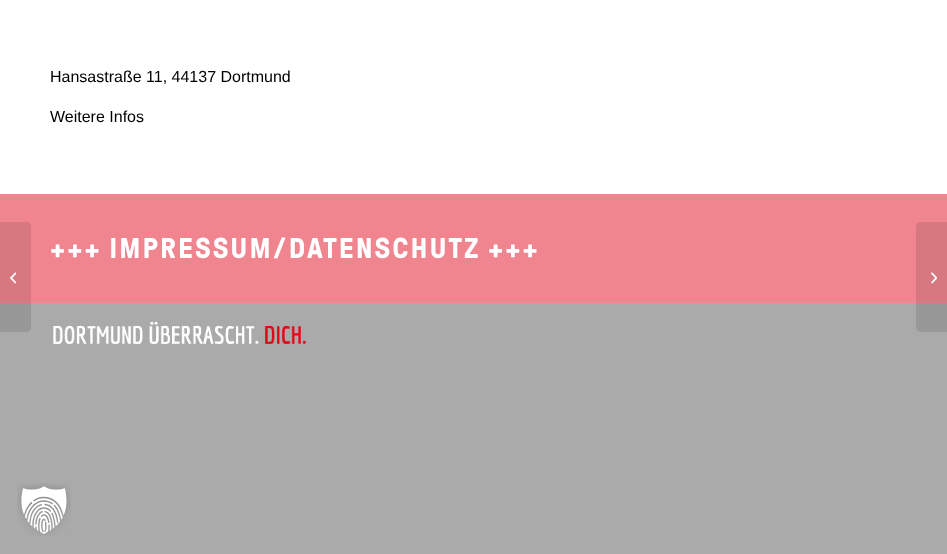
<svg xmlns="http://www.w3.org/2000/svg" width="947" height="554">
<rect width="100%" height="100%" fill="#aaa"/>
<rect y="194" width="947" height="109" fill="#f0858f"/>
<rect width="947" height="194" fill="#fff"/>
<text x="50" y="82" style="font-family:Liberation Sans;font-size:16px;fill:#000">Hansastraße 11, 44137 Dortmund</text>
<text x="50" y="122" style="font-family:Liberation Sans;font-size:16px;fill:#000">Weitere Infos</text>
<text x="50" y="258" style="font-family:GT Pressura;font-size:28.75px;font-weight:bold;letter-spacing:2px;fill:#fff">+++ IMPRESSUM/DATENSCHUTZ +++</text>
<image x="53" y="321" width="254" height="23" href="media/1.png"/>
<path d="M0 222h27c2 0 4 2 4 4v102c0 2-2 4-4 4h-27z" fill="#0000001a"/>
<image x="10" y="272" width="6" height="12" href="media/2.png"/>
<path d="M920 222h27v110h-27c-2 0-4-2-4-4v-102c0-2 2-4 4-4z" fill="#0000001a"/>
<image x="931" y="272" width="6" height="12" href="media/3.png"/>
<image x="17" y="483" width="54" height="53" href="media/4.png"/>
</svg>
